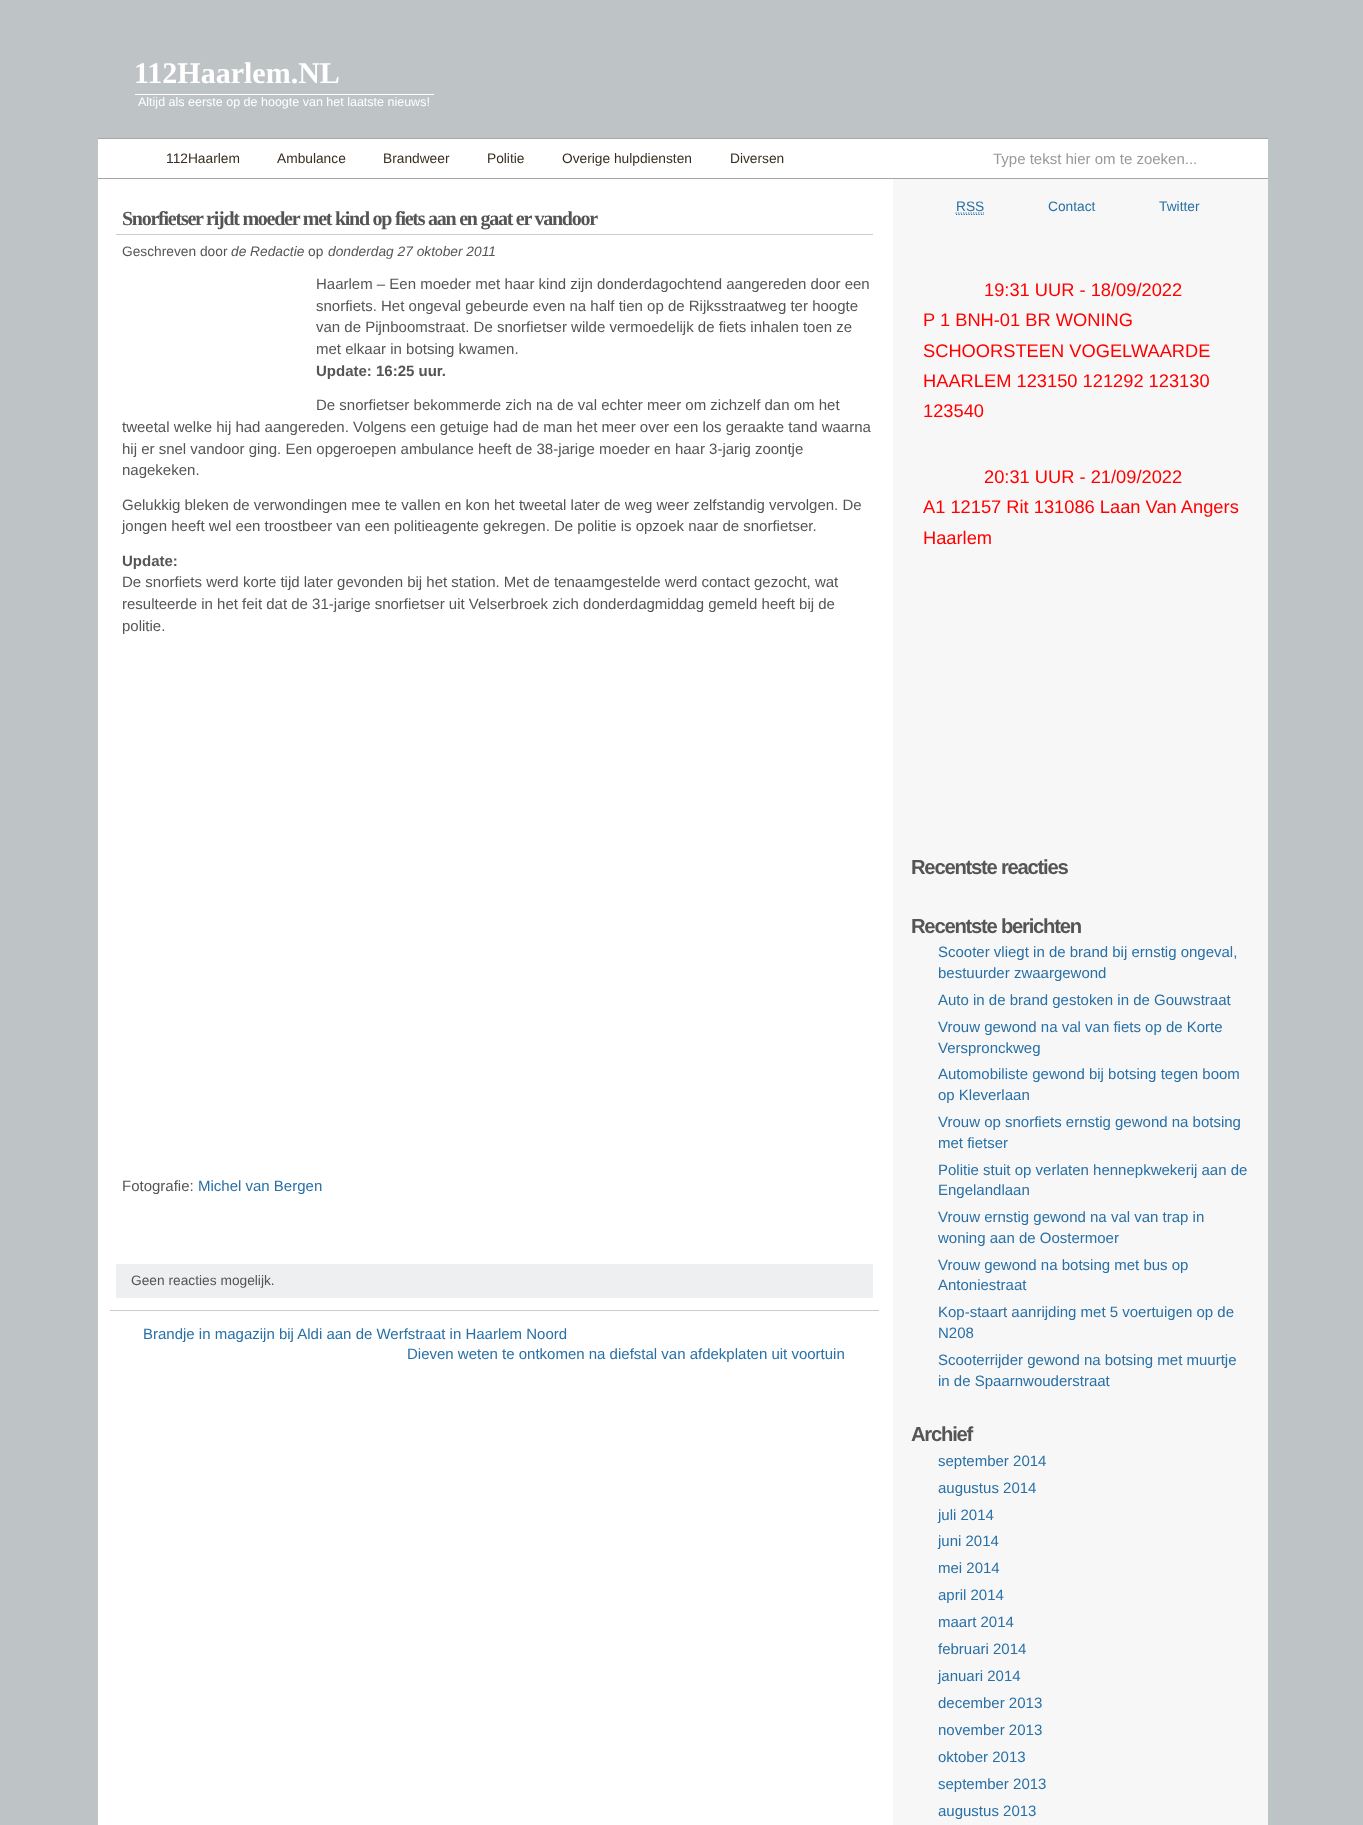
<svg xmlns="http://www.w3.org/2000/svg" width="1363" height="1825">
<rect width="100%" height="100%" fill="#bec3c6"/>
<rect x="98" y="138" width="1170" height="1" fill="#a6a6a6"/>
<text x="134" y="83" style="font-family:Liberation Serif;font-size:30px;font-weight:bold;fill:#fff">112Haarlem.NL</text>
<rect x="135" y="94" width="299" height="1" fill="#fff"/>
<text x="138" y="106" style="font-family:Liberation Sans;font-size:12.5px;fill:#fff">Altijd als eerste op de hoogte van het laatste nieuws!</text>
<rect x="98" y="139" width="1170" height="39" fill="#fff"/>
<rect x="98" y="178" width="1170" height="1" fill="#a6a6a6"/>
<text x="166" y="163" style="font-family:Liberation Sans;font-size:13.75px;fill:#382e1f">112Haarlem</text>
<text x="277" y="163" style="font-family:Liberation Sans;font-size:13.75px;fill:#382e1f">Ambulance</text>
<text x="383" y="163" style="font-family:Liberation Sans;font-size:13.75px;fill:#382e1f">Brandweer</text>
<text x="487" y="163" style="font-family:Liberation Sans;font-size:13.75px;fill:#382e1f">Politie</text>
<text x="562" y="163" style="font-family:Liberation Sans;font-size:13.75px;fill:#382e1f">Overige hulpdiensten</text>
<text x="730" y="163" style="font-family:Liberation Sans;font-size:13.75px;fill:#382e1f">Diversen</text>
<text x="993" y="164" style="font-family:Liberation Sans;font-size:15px;fill:#999">Type tekst hier om te zoeken...</text>
<rect x="98" y="179" width="795" height="1646" fill="#fff"/>
<rect x="116" y="234" width="757" height="1" fill="#ccc"/>
<text x="122" y="225" style="font-family:Liberation Serif;font-size:20px;font-weight:bold;letter-spacing:-1.25px;fill:#555">Snorfietser rijdt moeder met kind op fiets aan en gaat er vandoor</text>
<text x="122" y="256" style="font-family:Liberation Sans;font-size:13.75px;fill:#555">Geschreven door</text>
<text x="231" y="256" style="font-family:Liberation Sans;font-size:13.75px;font-style:italic;fill:#555">de Redactie</text>
<text x="308" y="256" style="font-family:Liberation Sans;font-size:13.75px;fill:#555">op</text>
<text x="328" y="256" style="font-family:Liberation Sans;font-size:13.75px;font-style:italic;fill:#555">donderdag 27 oktober 2011</text>
<text x="316" y="289" style="font-family:Liberation Sans;font-size:15px;fill:#555">Haarlem – Een moeder met haar kind zijn donderdagochtend aangereden door een</text>
<text x="316" y="311" style="font-family:Liberation Sans;font-size:15px;fill:#555">snorfiets. Het ongeval gebeurde even na half tien op de Rijksstraatweg ter hoogte</text>
<text x="316" y="332" style="font-family:Liberation Sans;font-size:15px;fill:#555">van de Pijnboomstraat. De snorfietser wilde vermoedelijk de fiets inhalen toen ze</text>
<text x="316" y="354" style="font-family:Liberation Sans;font-size:15px;fill:#555">met elkaar in botsing kwamen.</text>
<text x="316" y="376" style="font-family:Liberation Sans;font-size:15px;font-weight:bold;fill:#555">Update: 16:25 uur.</text>
<text x="316" y="410" style="font-family:Liberation Sans;font-size:15px;fill:#555">De snorfietser bekommerde zich na de val echter meer om zichzelf dan om het</text>
<text x="122" y="432" style="font-family:Liberation Sans;font-size:15px;fill:#555">tweetal welke hij had aangereden. Volgens een getuige had de man het meer over een los geraakte tand waarna</text>
<text x="122" y="454" style="font-family:Liberation Sans;font-size:15px;fill:#555">hij er snel vandoor ging. Een opgeroepen ambulance heeft de 38-jarige moeder en haar 3-jarig zoontje</text>
<text x="122" y="475" style="font-family:Liberation Sans;font-size:15px;fill:#555">nagekeken.</text>
<text x="122" y="510" style="font-family:Liberation Sans;font-size:15px;fill:#555">Gelukkig bleken de verwondingen mee te vallen en kon het tweetal later de weg weer zelfstandig vervolgen. De</text>
<text x="122" y="531" style="font-family:Liberation Sans;font-size:15px;fill:#555">jongen heeft wel een troostbeer van een politieagente gekregen. De politie is opzoek naar de snorfietser.</text>
<text x="122" y="566" style="font-family:Liberation Sans;font-size:15px;font-weight:bold;fill:#555">Update:</text>
<text x="122" y="587" style="font-family:Liberation Sans;font-size:15px;fill:#555">De snorfiets werd korte tijd later gevonden bij het station. Met de tenaamgestelde werd contact gezocht, wat</text>
<text x="122" y="609" style="font-family:Liberation Sans;font-size:15px;fill:#555">resulteerde in het feit dat de 31-jarige snorfietser uit Velserbroek zich donderdagmiddag gemeld heeft bij de</text>
<text x="122" y="631" style="font-family:Liberation Sans;font-size:15px;fill:#555">politie.</text>
<text x="122" y="1191" style="font-family:Liberation Sans;font-size:15px;fill:#555">Fotografie:</text>
<text x="198" y="1191" style="font-family:Liberation Sans;font-size:15px;fill:#2970a6">Michel van Bergen</text>
<rect x="116" y="1264" width="757" height="34" fill="#edeff0"/>
<text x="131" y="1285" style="font-family:Liberation Sans;font-size:13.75px;fill:#555">Geen reacties mogelijk.</text>
<rect x="110" y="1310" width="769" height="1" fill="#ccc"/>
<text x="143" y="1339" style="font-family:Liberation Sans;font-size:15px;fill:#2970a6">Brandje in magazijn bij Aldi aan de Werfstraat in Haarlem Noord</text>
<text x="407" y="1359" style="font-family:Liberation Sans;font-size:15px;fill:#2970a6">Dieven weten te ontkomen na diefstal van afdekplaten uit voortuin</text>
<rect x="893" y="179" width="375" height="1646" fill="#f7f7f7"/>
<text x="956" y="211" style="font-family:Liberation Sans;font-size:13.75px;fill:#2970a6">RSS</text>
<path d="M956 214.5h28m-28.5-1.5h28.5" fill="none" stroke="#2970a6" stroke-width="1.2" stroke-dasharray="1.25 1.25"/>
<text x="1048" y="211" style="font-family:Liberation Sans;font-size:13.75px;fill:#2970a6">Contact</text>
<text x="1159" y="211" style="font-family:Liberation Sans;font-size:13.75px;fill:#2970a6">Twitter</text>
<text x="984" y="296" style="font-family:Liberation Sans;font-size:18.3px;fill:#f00">19:31 UUR - 18/09/2022</text>
<text x="923" y="326" style="font-family:Liberation Sans;font-size:18.3px;fill:#f00">P 1 BNH-01 BR WONING</text>
<text x="923" y="357" style="font-family:Liberation Sans;font-size:18.3px;fill:#f00">SCHOORSTEEN VOGELWAARDE</text>
<text x="923" y="387" style="font-family:Liberation Sans;font-size:18.3px;fill:#f00">HAARLEM 123150 121292 123130</text>
<text x="923" y="417" style="font-family:Liberation Sans;font-size:18.3px;fill:#f00">123540</text>
<text x="984" y="483" style="font-family:Liberation Sans;font-size:18.3px;fill:#f00">20:31 UUR - 21/09/2022</text>
<text x="923" y="513" style="font-family:Liberation Sans;font-size:18.3px;fill:#f00">A1 12157 Rit 131086 Laan Van Angers</text>
<text x="923" y="544" style="font-family:Liberation Sans;font-size:18.3px;fill:#f00">Haarlem</text>
<text x="911" y="874" style="font-family:Liberation Sans;font-size:20.25px;font-weight:bold;letter-spacing:-1.25px;fill:#555">Recentste reacties</text>
<text x="911" y="933" style="font-family:Liberation Sans;font-size:20.25px;font-weight:bold;letter-spacing:-1.25px;fill:#555">Recentste berichten</text>
<text x="938" y="957" style="font-family:Liberation Sans;font-size:15px;fill:#2970a6">Scooter vliegt in de brand bij ernstig ongeval,</text>
<text x="938" y="978" style="font-family:Liberation Sans;font-size:15px;fill:#2970a6">bestuurder zwaargewond</text>
<text x="938" y="1005" style="font-family:Liberation Sans;font-size:15px;fill:#2970a6">Auto in de brand gestoken in de Gouwstraat</text>
<text x="938" y="1032" style="font-family:Liberation Sans;font-size:15px;fill:#2970a6">Vrouw gewond na val van fiets op de Korte</text>
<text x="938" y="1053" style="font-family:Liberation Sans;font-size:15px;fill:#2970a6">Verspronckweg</text>
<text x="938" y="1079" style="font-family:Liberation Sans;font-size:15px;fill:#2970a6">Automobiliste gewond bij botsing tegen boom</text>
<text x="938" y="1100" style="font-family:Liberation Sans;font-size:15px;fill:#2970a6">op Kleverlaan</text>
<text x="938" y="1127" style="font-family:Liberation Sans;font-size:15px;fill:#2970a6">Vrouw op snorfiets ernstig gewond na botsing</text>
<text x="938" y="1148" style="font-family:Liberation Sans;font-size:15px;fill:#2970a6">met fietser</text>
<text x="938" y="1175" style="font-family:Liberation Sans;font-size:15px;fill:#2970a6">Politie stuit op verlaten hennepkwekerij aan de</text>
<text x="938" y="1195" style="font-family:Liberation Sans;font-size:15px;fill:#2970a6">Engelandlaan</text>
<text x="938" y="1222" style="font-family:Liberation Sans;font-size:15px;fill:#2970a6">Vrouw ernstig gewond na val van trap in</text>
<text x="938" y="1243" style="font-family:Liberation Sans;font-size:15px;fill:#2970a6">woning aan de Oostermoer</text>
<text x="938" y="1270" style="font-family:Liberation Sans;font-size:15px;fill:#2970a6">Vrouw gewond na botsing met bus op</text>
<text x="938" y="1290" style="font-family:Liberation Sans;font-size:15px;fill:#2970a6">Antoniestraat</text>
<text x="938" y="1317" style="font-family:Liberation Sans;font-size:15px;fill:#2970a6">Kop-staart aanrijding met 5 voertuigen op de</text>
<text x="938" y="1338" style="font-family:Liberation Sans;font-size:15px;fill:#2970a6">N208</text>
<text x="938" y="1365" style="font-family:Liberation Sans;font-size:15px;fill:#2970a6">Scooterrijder gewond na botsing met muurtje</text>
<text x="938" y="1386" style="font-family:Liberation Sans;font-size:15px;fill:#2970a6">in de Spaarnwouderstraat</text>
<text x="911" y="1441" style="font-family:Liberation Sans;font-size:20.25px;font-weight:bold;letter-spacing:-1.25px;fill:#555">Archief</text>
<text x="938" y="1466" style="font-family:Liberation Sans;font-size:15px;fill:#2970a6">september 2014</text>
<text x="938" y="1493" style="font-family:Liberation Sans;font-size:15px;fill:#2970a6">augustus 2014</text>
<text x="938" y="1520" style="font-family:Liberation Sans;font-size:15px;fill:#2970a6">juli 2014</text>
<text x="938" y="1546" style="font-family:Liberation Sans;font-size:15px;fill:#2970a6">juni 2014</text>
<text x="938" y="1573" style="font-family:Liberation Sans;font-size:15px;fill:#2970a6">mei 2014</text>
<text x="938" y="1600" style="font-family:Liberation Sans;font-size:15px;fill:#2970a6">april 2014</text>
<text x="938" y="1627" style="font-family:Liberation Sans;font-size:15px;fill:#2970a6">maart 2014</text>
<text x="938" y="1654" style="font-family:Liberation Sans;font-size:15px;fill:#2970a6">februari 2014</text>
<text x="938" y="1681" style="font-family:Liberation Sans;font-size:15px;fill:#2970a6">januari 2014</text>
<text x="938" y="1708" style="font-family:Liberation Sans;font-size:15px;fill:#2970a6">december 2013</text>
<text x="938" y="1735" style="font-family:Liberation Sans;font-size:15px;fill:#2970a6">november 2013</text>
<text x="938" y="1762" style="font-family:Liberation Sans;font-size:15px;fill:#2970a6">oktober 2013</text>
<text x="938" y="1789" style="font-family:Liberation Sans;font-size:15px;fill:#2970a6">september 2013</text>
<text x="938" y="1816" style="font-family:Liberation Sans;font-size:15px;fill:#2970a6">augustus 2013</text>
</svg>
